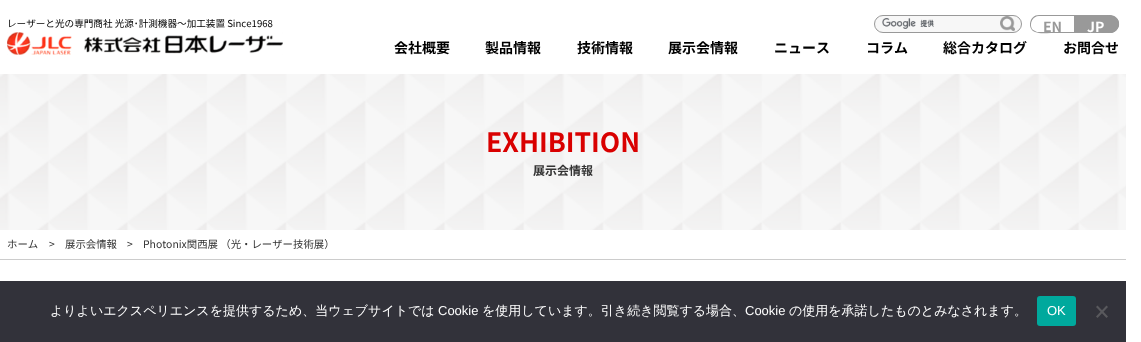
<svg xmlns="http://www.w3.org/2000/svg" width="1141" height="342">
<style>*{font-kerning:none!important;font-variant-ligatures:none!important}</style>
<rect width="100%" height="100%" fill="#fff"/>
<text x="7" y="27" style="font-family:Noto Sans JP;font-size:9.6px;fill:#000">レーザーと光の専門商社 光源･計測機器～加工装置 Since1968</text>
<image x="7" y="32" width="276" height="23" href="media/1.png"/>
<rect x="874" y="15" width="148" height="18" rx="9" fill="#f7f7f7"/>
<image x="882" y="16" width="133" height="15" href="media/2.png"/>
<rect x="874.5" y="15.5" width="147" height="17" rx="8.5" fill="none" stroke="#999"/>
<path d="M1039 15h35v18h-23c-5 0-11 1-16-1c-8-3-6-17 4-17zm0 1h35v16h-37c-2-1-4-2-5-3c-3-6 1-13 7-13z" fill="#999" fill-rule="evenodd"/>
<text x="1043" y="32" style="font-family:Noto Sans JP;font-size:14px;font-weight:bold;fill:#999">EN</text>
<path d="M1074 15h36c5 0 9 4 9 9c0 5-4 9-9 9h-36z" fill="#999"/>
<path d="M1074 15h24c7 0 23-2 21 11c-1 3-4 6-7 7h-38zm0 1h38c4 1 7 5 6 10c-2 8-14 6-20 6h-24z" fill="#999" fill-rule="evenodd"/>
<text x="1087" y="32" style="font-family:Noto Sans JP;font-size:14px;font-weight:bold;fill:#fff">JP</text>
<text x="394" y="53" style="font-family:Noto Sans JP;font-size:14px;font-weight:bold;fill:#000">会社概要</text>
<text x="485" y="53" style="font-family:Noto Sans JP;font-size:14px;font-weight:bold;fill:#000">製品情報</text>
<text x="577" y="53" style="font-family:Noto Sans JP;font-size:14px;font-weight:bold;fill:#000">技術情報</text>
<text x="668" y="53" style="font-family:Noto Sans JP;font-size:14px;font-weight:bold;fill:#000">展示会情報</text>
<text x="774" y="53" style="font-family:Noto Sans JP;font-size:14px;font-weight:bold;fill:#000">ニュース</text>
<text x="866" y="53" style="font-family:Noto Sans JP;font-size:14px;font-weight:bold;fill:#000">コラム</text>
<text x="943" y="53" style="font-family:Noto Sans JP;font-size:14px;font-weight:bold;fill:#000">総合カタログ</text>
<text x="1063" y="53" style="font-family:Noto Sans JP;font-size:14px;font-weight:bold;fill:#000">お問合せ</text>
<image x="0" y="74" width="1126" height="156" href="media/3.png"/>
<text x="486" y="152" style="font-family:Noto Sans JP;font-size:26.5px;font-weight:bold;fill:#d90000">EXHIBITION</text>
<text x="533" y="175" style="font-family:Noto Sans JP;font-size:12px;font-weight:bold;fill:#333">展示会情報</text>
<rect y="259" width="1126" height="1" fill="#ccc"/>
<text x="7" y="248" style="font-family:Noto Sans JP;font-size:10.4px;fill:#333">ホーム</text>
<text x="49" y="248" style="font-family:Noto Sans JP;font-size:10.4px;fill:#333">&gt;</text>
<text x="65" y="248" style="font-family:Noto Sans JP;font-size:10.4px;fill:#333">展示会情報</text>
<text x="127" y="248" style="font-family:Noto Sans JP;font-size:10.4px;fill:#333">&gt;</text>
<text x="143" y="248" style="font-family:Noto Sans JP;font-size:10.4px;fill:#333">Photonix関西展 （光・レーザー技術展）</text>
<rect y="281" width="1126" height="61" fill="#32323a"/>
<text x="50" y="315" style="font-family:WenQuanYi Zen Hei;font-size:13px;font-weight:500;fill:#fff">よりよいエクスペリエンスを提供するため、当ウェブサイトでは</text>
<text x="438" y="315" style="font-family:Liberation Sans;font-size:13px;fill:#fff">Cookie</text>
<text x="482" y="315" style="font-family:WenQuanYi Zen Hei;font-size:13px;font-weight:500;fill:#fff">を使用しています。引き続き閲覧する場合、</text>
<text x="745" y="315" style="font-family:Liberation Sans;font-size:13px;fill:#fff">Cookie</text>
<text x="789" y="315" style="font-family:WenQuanYi Zen Hei;font-size:13px;font-weight:500;fill:#fff">の使用を承諾したものとみなされます。</text>
<rect x="1037" y="296" width="39" height="30" rx="3" fill="#00a99d"/>
<text x="1047" y="315" style="font-family:Liberation Sans;font-size:13px;fill:#fff">OK</text>
<path d="M1106.5 305.5l1.5 1.5l-10.5 11l-1.5-1.5z" fill="#59595d"/>
<path d="M1096 307l1.5-1.5l10.5 11l-1.5 1.5z" fill="#59595d"/>
</svg>
